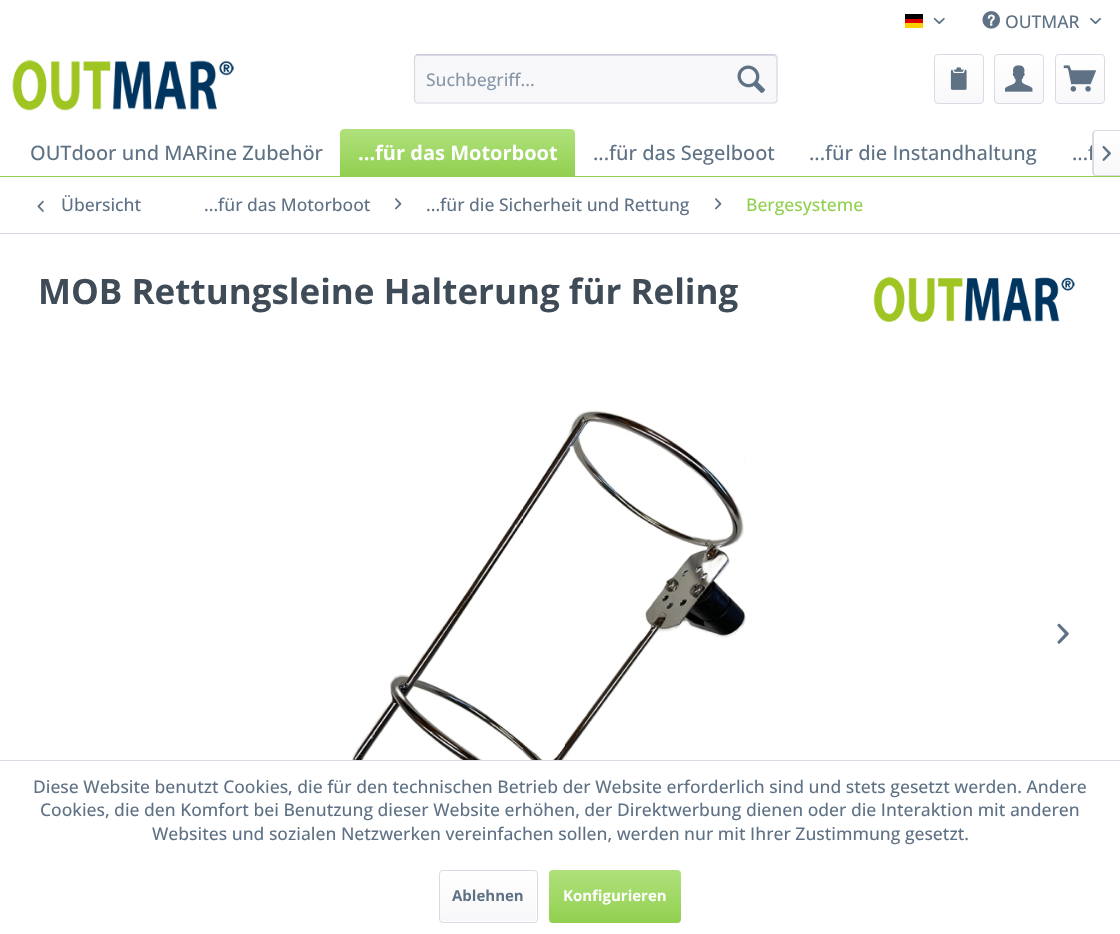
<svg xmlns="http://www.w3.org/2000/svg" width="1120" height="934">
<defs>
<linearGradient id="g1" gradientUnits="userSpaceOnUse" x1="959" y1="55" x2="959" y2="103"><stop offset="0" stop-color="#fff"/><stop offset="1" stop-color="#f8f8fa"/></linearGradient>
<linearGradient id="g2" gradientUnits="userSpaceOnUse" x1="1019" y1="55" x2="1019" y2="103"><stop offset="0" stop-color="#fff"/><stop offset="1" stop-color="#f8f8fa"/></linearGradient>
<linearGradient id="g3" gradientUnits="userSpaceOnUse" x1="1080" y1="55" x2="1080" y2="103"><stop offset="0" stop-color="#fff"/><stop offset="1" stop-color="#f8f8fa"/></linearGradient>
<linearGradient id="g4" gradientUnits="userSpaceOnUse" x1="458" y1="129" x2="458" y2="176"><stop offset="0" stop-color="#b0e17c"/><stop offset="1" stop-color="#92d050"/></linearGradient>
<linearGradient id="g5" gradientUnits="userSpaceOnUse" x1="1107" y1="131" x2="1107" y2="175"><stop offset="0" stop-color="#fff"/><stop offset="1" stop-color="#f8f8fa"/></linearGradient>
<linearGradient id="g6" gradientUnits="userSpaceOnUse" x1="488" y1="871" x2="488" y2="921"><stop offset="0" stop-color="#fff"/><stop offset="1" stop-color="#f8f8fa"/></linearGradient>
<linearGradient id="g7" gradientUnits="userSpaceOnUse" x1="615" y1="870" x2="615" y2="923"><stop offset="0" stop-color="#b0e17c"/><stop offset="1" stop-color="#92d050"/></linearGradient>
</defs>
<rect width="100%" height="100%" fill="#fff"/>
<rect x="905" y="14" width="18" height="5" fill="#000"/>
<rect x="905" y="19" width="18" height="4" fill="#d00"/>
<rect x="905" y="23" width="18" height="5" fill="#ffce00"/>
<image x="933" y="17" width="12" height="8" href="media/1.png"/>
<image x="982" y="11" width="18" height="18" href="media/2.png"/>
<text x="1005" y="28" style="font-family:Open Sans;font-size:17.5px;font-weight:500;fill:#5f7285">OUTMAR</text>
<image x="1090" y="17" width="11" height="8" href="media/3.png"/>
<image x="12" y="59" width="222" height="52" href="media/4.png"/>
<rect x="414" y="54" width="364" height="50" rx="4" fill="#f8f8fa"/>
<path d="M418 56h356c1 0 2 1 2 3c0-2 0-4-2-4h-356c-3 0-3 2-3 4c0-2 1-3 3-3z" fill="#dadae5"/>
<path d="M415.5 55.5l2-1h356.5l2 1" fill="none" stroke="#cbcbdb" stroke-width="1.2"/>
<path d="M776 55.5l1 2v42.5l-1 2l-2 1h-356.5l-2-1l-1-2v-42.5l1-2" fill="none" stroke="#dadae5" stroke-width="1.2"/>
<text x="426" y="86" style="font-family:Open Sans;font-size:17.5px;font-weight:500;fill:#8798a9">Suchbegriff...</text>
<image x="737" y="65" width="28" height="28" href="media/5.png"/>
<rect x="935" y="55" width="48" height="48" rx="2.5" fill="url(#g1)"/>
<rect x="934.5" y="54.5" width="49" height="49" rx="3.5" fill="none" stroke="#dadae5"/>
<image x="950" y="67" width="17" height="23" href="media/6.png"/>
<rect x="995" y="55" width="48" height="48" rx="2.5" fill="url(#g2)"/>
<rect x="994.5" y="54.5" width="49" height="49" rx="3.5" fill="none" stroke="#dadae5"/>
<image x="1005" y="65" width="28" height="27" href="media/7.png"/>
<rect x="1056" y="55" width="48" height="48" rx="2.5" fill="url(#g3)"/>
<rect x="1055.5" y="54.5" width="49" height="49" rx="3.5" fill="none" stroke="#dadae5"/>
<image x="1063" y="65" width="34" height="27" href="media/8.png"/>
<rect y="176" width="1120" height="1" fill="#92d050"/>
<text x="30" y="160" style="font-family:Open Sans;font-size:20px;font-weight:500;fill:#5f7285">OUTdoor und MARine Zubehör</text>
<path d="M344 129h227c2 0 4 2 4 4v43h-235v-43c0-2 2-4 4-4z" fill="url(#g4)"/>
<text x="358" y="160" style="font-family:Open Sans;font-size:20px;font-weight:bold;fill:#fff">...für das Motorboot</text>
<text x="593" y="160" style="font-family:Open Sans;font-size:20px;font-weight:500;fill:#5f7285">...für das Segelboot</text>
<text x="809" y="160" style="font-family:Open Sans;font-size:20px;font-weight:500;fill:#5f7285">...für die Instandhaltung</text>
<text x="1072" y="160" style="font-family:Open Sans;font-size:20px;font-weight:500;fill:#5f7285">...f</text>
<path d="M1096.5 131h23.5v44h-23.5c-1.5 0-2.5-1-2.5-2.5v-39c0-1.5 1-2.5 2.5-2.5z" fill="url(#g5)"/>
<path d="M1096 130h24v46h-24c-2 0-4-1-4-4v-38c0-2 2-4 4-4zm0 1h24v44h-24c-1 0-2-1-2-3v-38c0-2 1-3 2-3z" fill="#dadae5" fill-rule="evenodd"/>
<image x="1102" y="146" width="9" height="15" href="media/9.png"/>
<rect y="233" width="1120" height="1" fill="#dadae5"/>
<image x="37" y="200" width="7" height="12" href="media/10.png"/>
<text x="61" y="211" style="font-family:Open Sans;font-size:17.5px;font-weight:500;fill:#5f7285">Übersicht</text>
<text x="204" y="211" style="font-family:Open Sans;font-size:17.5px;font-weight:500;fill:#5f7285">...für das Motorboot</text>
<image x="395" y="198" width="7" height="12" href="media/11.png"/>
<text x="426" y="211" style="font-family:Open Sans;font-size:17.5px;font-weight:500;fill:#5f7285">...für die Sicherheit und Rettung</text>
<image x="715" y="198" width="7" height="12" href="media/11.png"/>
<text x="746" y="211" style="font-family:Open Sans;font-size:17.5px;font-weight:500;fill:#92d050">Bergesysteme</text>
<text x="38" y="304" style="font-family:Open Sans;font-size:35px;font-weight:bold;fill:#3f4c58">MOB Rettungsleine Halterung für Reling</text>
<image x="873" y="276" width="202" height="46" href="media/12.png"/>
<image x="350" y="410" width="396" height="350" href="media/13.png"/>
<image x="1057" y="623" width="12" height="21" href="media/14.png"/>
<rect y="760" width="1120" height="1" fill="#dadae5"/>
<text x="33" y="793" style="font-family:Open Sans;font-size:17.5px;font-weight:500;fill:#5f7285">Diese Website benutzt Cookies, die für den technischen Betrieb der Website erforderlich sind und stets gesetzt werden. Andere</text>
<text x="40" y="816" style="font-family:Open Sans;font-size:17.5px;font-weight:500;fill:#5f7285">Cookies, die den Komfort bei Benutzung dieser Website erhöhen, der Direktwerbung dienen oder die Interaktion mit anderen</text>
<text x="152" y="840" style="font-family:Open Sans;font-size:17.5px;font-weight:500;fill:#5f7285">Websites und sozialen Netzwerken vereinfachen sollen, werden nur mit Ihrer Zustimmung gesetzt.</text>
<rect x="440" y="871" width="96" height="50" rx="2.5" fill="url(#g6)"/>
<rect x="439.5" y="870.5" width="98" height="52" rx="3.5" fill="none" stroke="#dadae5"/>
<text x="452" y="901" style="font-family:Open Sans;font-size:15px;font-weight:bold;fill:#5f7285">Ablehnen</text>
<rect x="549" y="870" width="132" height="53" rx="4" fill="url(#g7)"/>
<text x="563" y="901" style="font-family:Open Sans;font-size:15px;font-weight:bold;fill:#fff">Konfigurieren</text>
</svg>
